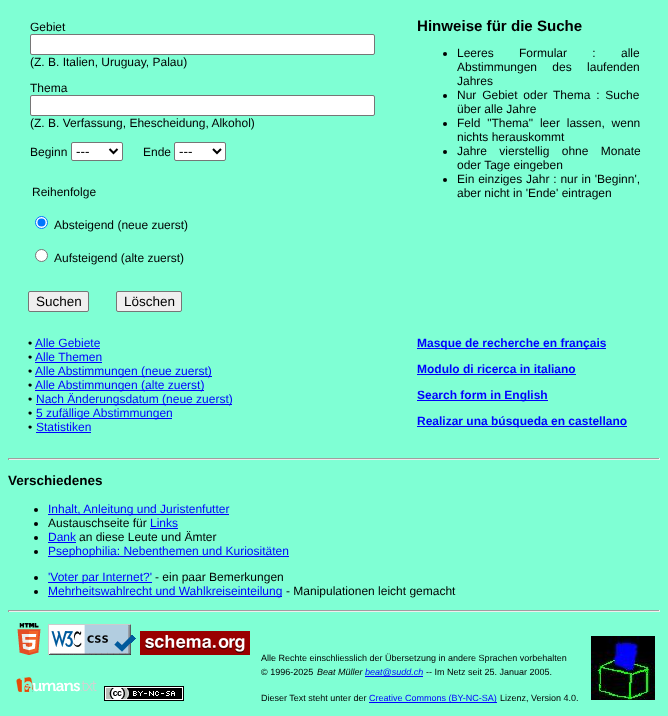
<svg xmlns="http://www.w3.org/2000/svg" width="668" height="716">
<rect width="100%" height="100%" fill="#7fffd4"/>
<text x="30" y="31" style="font-family:Liberation Sans;font-size:12px;fill:#000">Gebiet</text>
<rect x="30.5" y="34.5" width="344" height="20" rx="1.5" fill="#fff" stroke="#767676"/>
<text x="30" y="66" style="font-family:Liberation Sans;font-size:12px;fill:#000">(Z. B. Italien, Uruguay, Palau)</text>
<text x="30" y="92" style="font-family:Liberation Sans;font-size:12px;fill:#000">Thema</text>
<rect x="30.5" y="95.5" width="344" height="20" rx="1.5" fill="#fff" stroke="#767676"/>
<text x="30" y="127" style="font-family:Liberation Sans;font-size:12px;fill:#000">(Z. B. Verfassung, Ehescheidung, Alkohol)</text>
<text x="30" y="156" style="font-family:Liberation Sans;font-size:12px;fill:#000">Beginn</text>
<rect x="71.5" y="142.5" width="51" height="18" rx="1.5" fill="#fff" stroke="#767676"/>
<path d="M109.5 149l4 4l4-4" fill="none" stroke="#000" stroke-width="2"/>
<text x="76" y="156" style="font-family:Liberation Sans;font-size:13.5px;fill:#000">---</text>
<text x="143" y="156" style="font-family:Liberation Sans;font-size:12px;fill:#000">Ende</text>
<rect x="174.5" y="142.5" width="51" height="18" rx="1.5" fill="#fff" stroke="#767676"/>
<path d="M213 149l4 4l4-4" fill="none" stroke="#000" stroke-width="2"/>
<text x="179" y="156" style="font-family:Liberation Sans;font-size:13.5px;fill:#000">---</text>
<text x="32" y="196" style="font-family:Liberation Sans;font-size:12px;fill:#000">Reihenfolge</text>
<circle cx="41.5" cy="222.5" r="6" fill="#fff" stroke="#0075ff"/>
<circle cx="41.5" cy="222.5" r="4" fill="#0075ff"/>
<text x="54" y="229" style="font-family:Liberation Sans;font-size:12px;fill:#000">Absteigend (neue zuerst)</text>
<circle cx="41.5" cy="255.5" r="6" fill="#fff" stroke="#767676"/>
<text x="54" y="262" style="font-family:Liberation Sans;font-size:12px;fill:#000">Aufsteigend (alte zuerst)</text>
<rect x="28.5" y="291.5" width="60" height="20" rx="1.5" fill="#efefef" stroke="#767676"/>
<text x="36" y="306" style="font-family:Liberation Sans;font-size:13.5px;fill:#000">Suchen</text>
<rect x="116.5" y="291.5" width="65" height="20" rx="1.5" fill="#efefef" stroke="#767676"/>
<text x="124" y="306" style="font-family:Liberation Sans;font-size:13.5px;fill:#000">Löschen</text>
<text x="417" y="31" style="font-family:Liberation Sans;font-size:15.1px;font-weight:bold;fill:#000">Hinweise für die Suche</text>
<circle cx="445" cy="54" r="2" fill="#000"/>
<text x="457" y="57" word-spacing="22" style="font-family:Liberation Sans;font-size:12px;fill:#000">Leeres Formular : alle</text>
<text x="457" y="71" word-spacing="12" style="font-family:Liberation Sans;font-size:12px;fill:#000">Abstimmungen des laufenden</text>
<text x="457" y="85" style="font-family:Liberation Sans;font-size:12px;fill:#000">Jahres</text>
<circle cx="445" cy="96" r="2" fill="#000"/>
<text x="457" y="99" word-spacing="2.5" style="font-family:Liberation Sans;font-size:12px;fill:#000">Nur Gebiet oder Thema : Suche</text>
<text x="457" y="113" style="font-family:Liberation Sans;font-size:12px;fill:#000">über alle Jahre</text>
<circle cx="445" cy="124" r="2" fill="#000"/>
<text x="457" y="127" word-spacing="3.5" style="font-family:Liberation Sans;font-size:12px;fill:#000">Feld "Thema" leer lassen, wenn</text>
<text x="457" y="141" style="font-family:Liberation Sans;font-size:12px;fill:#000">nichts herauskommt</text>
<circle cx="445" cy="152" r="2" fill="#000"/>
<text x="457" y="155" word-spacing="9" style="font-family:Liberation Sans;font-size:12px;fill:#000">Jahre vierstellig ohne Monate</text>
<text x="457" y="169" style="font-family:Liberation Sans;font-size:12px;fill:#000">oder Tage eingeben</text>
<circle cx="445" cy="180" r="2" fill="#000"/>
<text x="457" y="183" word-spacing="0.5" style="font-family:Liberation Sans;font-size:12px;fill:#000">Ein einziges Jahr : nur in 'Beginn',</text>
<text x="457" y="197" style="font-family:Liberation Sans;font-size:12px;fill:#000">aber nicht in 'Ende' eintragen</text>
<text x="28" y="347" style="font-family:Liberation Sans;font-size:12px;fill:#000">•</text>
<text x="35" y="347" style="font-family:Liberation Sans;font-size:12px;fill:#00f">Alle Gebiete</text>
<rect x="35" y="348" width="65" height="1" fill="#00f"/>
<text x="28" y="361" style="font-family:Liberation Sans;font-size:12px;fill:#000">•</text>
<text x="35" y="361" style="font-family:Liberation Sans;font-size:12px;fill:#00f">Alle Themen</text>
<rect x="35" y="362" width="67" height="1" fill="#00f"/>
<text x="28" y="375" style="font-family:Liberation Sans;font-size:12px;fill:#000">•</text>
<rect x="35" y="376" width="177" height="1" fill="#00f"/>
<text x="35" y="375" style="font-family:Liberation Sans;font-size:12px;fill:#00f">Alle Abstimmungen (neue zuerst)</text>
<text x="28" y="389" style="font-family:Liberation Sans;font-size:12px;fill:#000">•</text>
<rect x="35" y="390" width="169" height="1" fill="#00f"/>
<text x="35" y="389" style="font-family:Liberation Sans;font-size:12px;fill:#00f">Alle Abstimmungen (alte zuerst)</text>
<text x="28" y="403" style="font-family:Liberation Sans;font-size:12px;fill:#000">•</text>
<rect x="36" y="404" width="196" height="1" fill="#00f"/>
<text x="36" y="403" style="font-family:Liberation Sans;font-size:12px;fill:#00f">Nach Änderungsdatum (neue zuerst)</text>
<text x="28" y="417" style="font-family:Liberation Sans;font-size:12px;fill:#000">•</text>
<rect x="36" y="418" width="136" height="1" fill="#00f"/>
<text x="36" y="417" style="font-family:Liberation Sans;font-size:12px;fill:#00f">5 zufällige Abstimmungen</text>
<text x="28" y="431" style="font-family:Liberation Sans;font-size:12px;fill:#000">•</text>
<text x="36" y="431" style="font-family:Liberation Sans;font-size:12px;fill:#00f">Statistiken</text>
<rect x="36" y="432" width="55" height="1" fill="#00f"/>
<rect x="417" y="348" width="189" height="1" fill="#00f"/>
<text x="417" y="347" style="font-family:Liberation Sans;font-size:12px;font-weight:bold;fill:#00f">Masque de recherche en français</text>
<text x="417" y="373" style="font-family:Liberation Sans;font-size:12px;font-weight:bold;fill:#00f">Modulo di ricerca in italiano</text>
<rect x="417" y="374" width="159" height="1" fill="#00f"/>
<rect x="417" y="400" width="131" height="1" fill="#00f"/>
<text x="417" y="399" style="font-family:Liberation Sans;font-size:12px;font-weight:bold;fill:#00f">Search form in English</text>
<rect x="417" y="426" width="210" height="1" fill="#00f"/>
<text x="417" y="425" style="font-family:Liberation Sans;font-size:12px;font-weight:bold;fill:#00f">Realizar una búsqueda en castellano</text>
<rect x="8" y="458" width="652" height="1" fill="#9f9f9f"/>
<rect x="659" y="458" width="1" height="2" fill="#eee"/>
<rect x="8" y="459" width="652" height="1" fill="#eee"/>
<rect x="8" y="458" width="1" height="2" fill="#9f9f9f"/>
<text x="8" y="485" style="font-family:Liberation Sans;font-size:13.5px;font-weight:bold;fill:#000">Verschiedenes</text>
<circle cx="36" cy="510" r="2" fill="#000"/>
<rect x="48" y="514" width="181" height="1" fill="#00f"/>
<text x="48" y="513" style="font-family:Liberation Sans;font-size:12px;fill:#00f">Inhalt, Anleitung und Juristenfutter</text>
<circle cx="36" cy="524" r="2" fill="#000"/>
<text x="48" y="527" style="font-family:Liberation Sans;font-size:12px;fill:#000">Austauschseite für</text>
<text x="150" y="527" style="font-family:Liberation Sans;font-size:12px;fill:#00f">Links</text>
<rect x="150" y="528" width="28" height="1" fill="#00f"/>
<circle cx="36" cy="538" r="2" fill="#000"/>
<text x="48" y="541" style="font-family:Liberation Sans;font-size:12px;fill:#00f">Dank</text>
<rect x="48" y="542" width="28" height="1" fill="#00f"/>
<text x="79" y="541" style="font-family:Liberation Sans;font-size:12px;fill:#000">an diese Leute und Ämter</text>
<circle cx="36" cy="552" r="2" fill="#000"/>
<rect x="48" y="556" width="241" height="1" fill="#00f"/>
<text x="48" y="555" style="font-family:Liberation Sans;font-size:12px;fill:#00f">Psephophilia: Nebenthemen und Kuriositäten</text>
<circle cx="36" cy="578" r="2" fill="#000"/>
<rect x="48" y="582" width="104" height="1" fill="#00f"/>
<text x="48" y="581" style="font-family:Liberation Sans;font-size:12px;fill:#00f">'Voter par Internet?'</text>
<text x="155" y="581" style="font-family:Liberation Sans;font-size:12px;fill:#000">- ein paar Bemerkungen</text>
<circle cx="36" cy="592" r="2" fill="#000"/>
<rect x="48" y="596" width="234" height="1" fill="#00f"/>
<text x="48" y="595" style="font-family:Liberation Sans;font-size:12px;fill:#00f">Mehrheitswahlrecht und Wahlkreiseinteilung</text>
<text x="286" y="595" style="font-family:Liberation Sans;font-size:12px;fill:#000">- Manipulationen leicht gemacht</text>
<rect x="8" y="610" width="652" height="1" fill="#9f9f9f"/>
<rect x="659" y="610" width="1" height="2" fill="#eee"/>
<rect x="8" y="611" width="652" height="1" fill="#eee"/>
<rect x="8" y="610" width="1" height="2" fill="#9f9f9f"/>
<image x="17" y="623" width="24" height="32" href="media/1.png"/>
<image x="48" y="624" width="88" height="31" href="media/2.png"/>
<image x="140" y="631" width="110" height="24" href="media/3.png"/>
<image x="16" y="677" width="81" height="15" href="media/4.png"/>
<image x="104" y="686" width="80" height="15" href="media/5.png"/>
<text x="261" y="661" style="font-family:Liberation Sans;font-size:9px;fill:#000">Alle Rechte einschliesslich der Übersetzung in andere Sprachen vorbehalten</text>
<text x="261" y="675" style="font-family:Liberation Sans;font-size:9px;fill:#000">© 1996-2025</text>
<text x="317" y="675" style="font-family:Liberation Sans;font-size:9px;font-style:italic;fill:#000">Beat Müller</text>
<rect x="365" y="676" width="46" height="1" fill="#00f"/>
<text x="365" y="675" style="font-family:Liberation Sans;font-size:9px;font-style:italic;fill:#00f">beat@sudd.ch</text>
<rect x="411" y="676" width="12" height="1" fill="#00f"/>
<text x="426" y="675" style="font-family:Liberation Sans;font-size:9px;fill:#000">-- Im Netz seit 25. Januar 2005.</text>
<text x="261" y="701" style="font-family:Liberation Sans;font-size:9px;fill:#000">Dieser Text steht unter der</text>
<rect x="369" y="702" width="128" height="1" fill="#00f"/>
<text x="369" y="701" style="font-family:Liberation Sans;font-size:9px;fill:#00f">Creative Commons (BY-NC-SA)</text>
<text x="500" y="701" style="font-family:Liberation Sans;font-size:9px;fill:#000">Lizenz, Version 4.0.</text>
<image x="591" y="636" width="64" height="64" href="media/6.png"/>
</svg>
